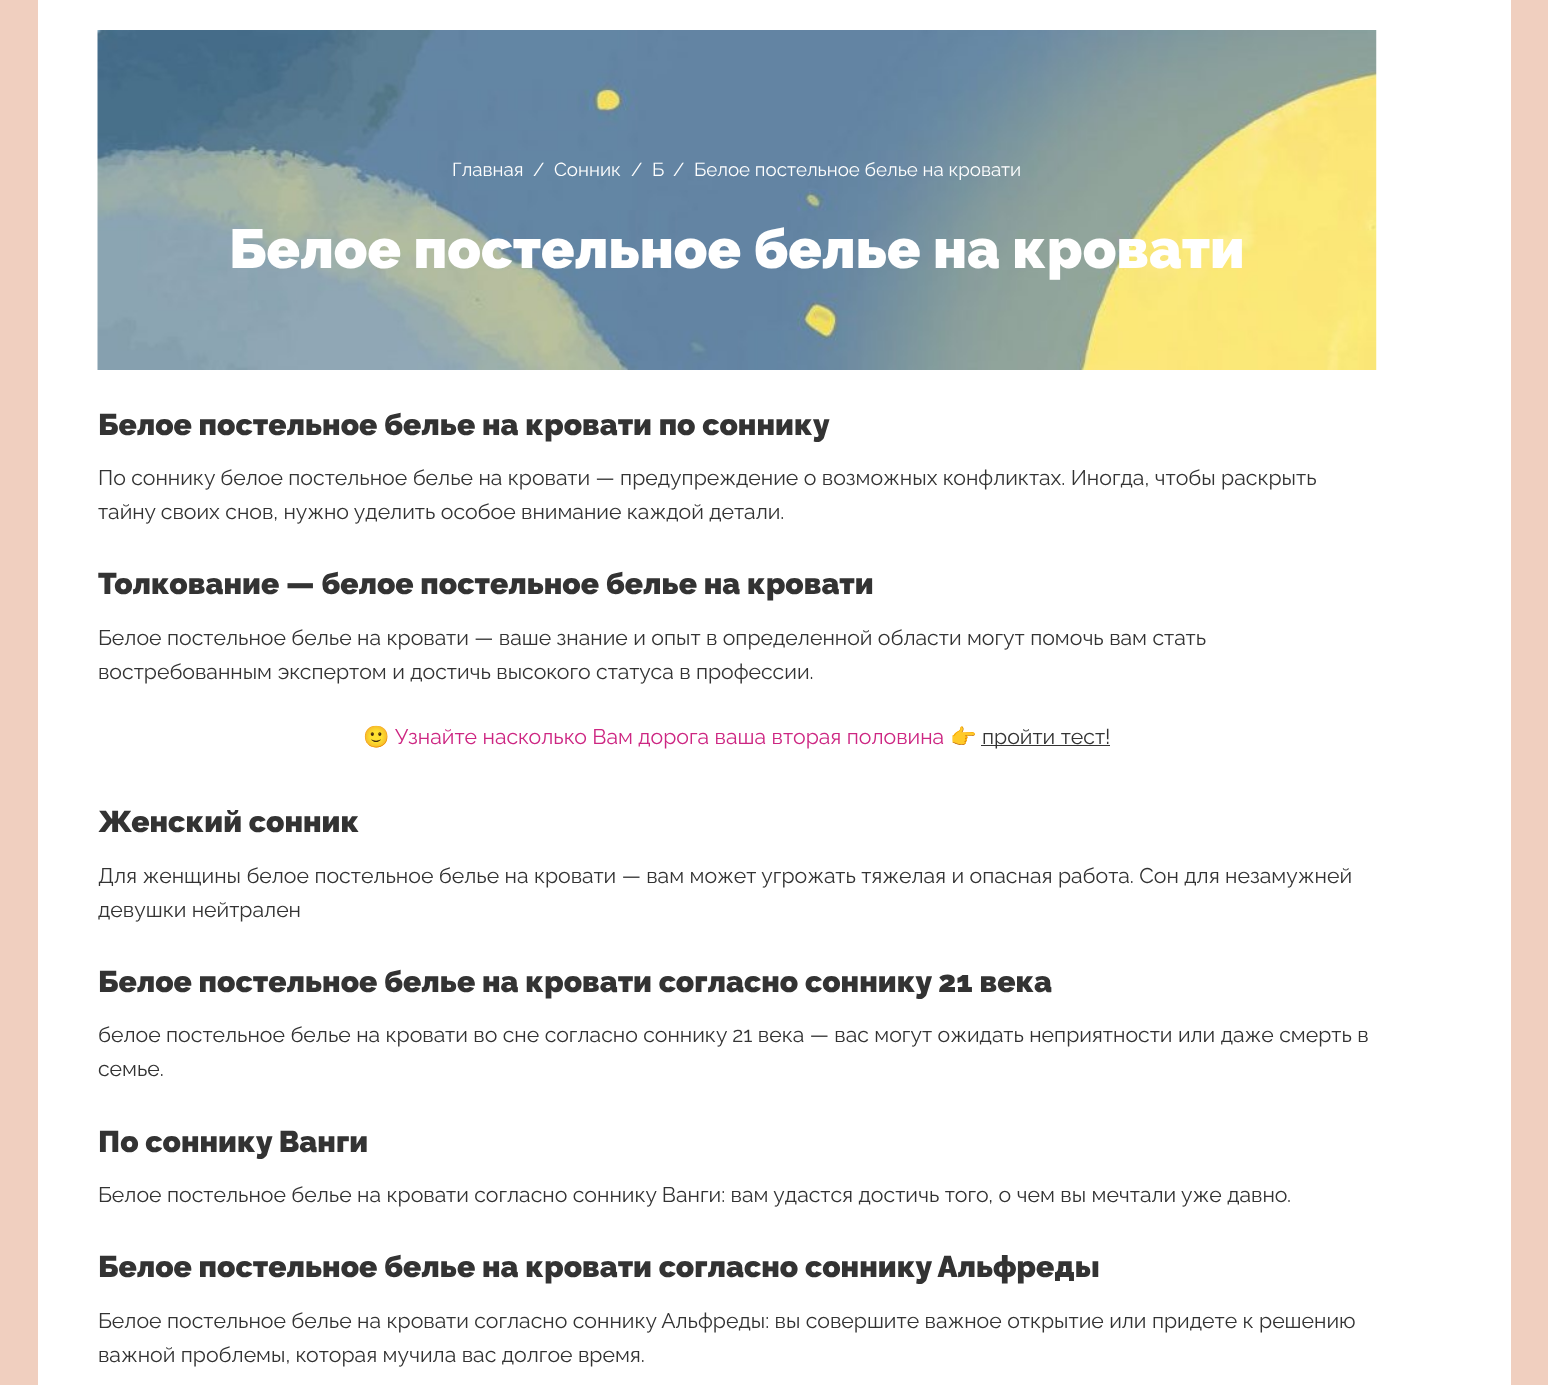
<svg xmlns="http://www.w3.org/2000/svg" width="1548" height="1385">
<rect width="100%" height="100%" fill="#f0cfbf"/>
<rect x="38" width="1473" height="1385" fill="#fff"/>
<image x="97" y="30" width="1280" height="340" href="media/1.png"/>
<text x="452" y="176" style="font-family:'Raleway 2';font-size:18.75px;font-weight:100;fill:#fff">Главная</text>
<text x="533" y="176" style="font-family:'Raleway 2';font-size:18.75px;font-weight:100;fill:#fff">/</text>
<text x="554" y="176" style="font-family:'Raleway 2';font-size:18.75px;font-weight:100;fill:#fff">Сонник</text>
<text x="631" y="176" style="font-family:'Raleway 2';font-size:18.75px;font-weight:100;fill:#fff">/</text>
<text x="652" y="176" style="font-family:'Raleway 2';font-size:18.75px;font-weight:100;fill:#fff">Б</text>
<text x="673" y="176" style="font-family:'Raleway 2';font-size:18.75px;font-weight:100;fill:#fff">/</text>
<text x="694" y="176" style="font-family:'Raleway 2';font-size:18.75px;font-weight:100;fill:#fff">Белое постельное белье на кровати</text>
<text x="229" y="268" style="font-family:Raleway;font-size:55px;font-weight:100;fill:#fff">Белое постельное белье на кровати</text>
<text x="98" y="435" style="font-family:Raleway;font-size:30px;font-weight:100;fill:#333">Белое постельное белье на кровати по соннику</text>
<text x="98" y="485" style="font-family:'Raleway 2';font-size:21.25px;font-weight:100;fill:#333">По соннику белое постельное белье на кровати — предупреждение о возможных конфликтах. Иногда, чтобы раскрыть</text>
<text x="98" y="519" style="font-family:'Raleway 2';font-size:21.25px;font-weight:100;fill:#333">тайну своих снов, нужно уделить особое внимание каждой детали.</text>
<text x="98" y="594" style="font-family:Raleway;font-size:30px;font-weight:100;fill:#333">Толкование — белое постельное белье на кровати</text>
<text x="98" y="645" style="font-family:'Raleway 2';font-size:21.25px;font-weight:100;fill:#333">Белое постельное белье на кровати — ваше знание и опыт в определенной области могут помочь вам стать</text>
<text x="98" y="679" style="font-family:'Raleway 2';font-size:21.25px;font-weight:100;fill:#333">востребованным экспертом и достичь высокого статуса в профессии.</text>
<text x="363" y="744" style="font-family:Noto Color Emoji;font-size:21.25px;fill:#cd2682">🙂</text>
<text x="395" y="744" style="font-family:'Raleway 2';font-size:21.25px;font-weight:100;fill:#cd2682">Узнайте насколько Вам дорога ваша вторая половина</text>
<text x="950" y="744" style="font-family:Noto Color Emoji;font-size:21.25px;fill:#cd2682">👉</text>
<rect x="981" y="745" width="129" height="1" fill="#333"/>
<text x="982" y="744" style="font-family:'Raleway 2';font-size:21.25px;font-weight:100;fill:#333">пройти тест!</text>
<text x="98" y="832" style="font-family:Raleway;font-size:30px;font-weight:100;fill:#333">Женский сонник</text>
<text x="98" y="883" style="font-family:'Raleway 2';font-size:21.25px;font-weight:100;fill:#333">Для женщины белое постельное белье на кровати — вам может угрожать тяжелая и опасная работа. Сон для незамужней</text>
<text x="98" y="917" style="font-family:'Raleway 2';font-size:21.25px;font-weight:100;fill:#333">девушки нейтрален</text>
<text x="98" y="992" style="font-family:Raleway;font-size:30px;font-weight:100;fill:#333">Белое постельное белье на кровати согласно соннику 21 века</text>
<text x="98" y="1042" style="font-family:'Raleway 2';font-size:21.25px;font-weight:100;fill:#333">белое постельное белье на кровати во сне согласно соннику 21 века — вас могут ожидать неприятности или даже смерть в</text>
<text x="98" y="1076" style="font-family:'Raleway 2';font-size:21.25px;font-weight:100;fill:#333">семье.</text>
<text x="98" y="1152" style="font-family:Raleway;font-size:30px;font-weight:100;fill:#333">По соннику Ванги</text>
<text x="98" y="1202" style="font-family:'Raleway 2';font-size:21.25px;font-weight:100;fill:#333">Белое постельное белье на кровати согласно соннику Ванги: вам удастся достичь того, о чем вы мечтали уже давно.</text>
<text x="98" y="1277" style="font-family:Raleway;font-size:30px;font-weight:100;fill:#333">Белое постельное белье на кровати согласно соннику Альфреды</text>
<text x="98" y="1328" style="font-family:'Raleway 2';font-size:21.25px;font-weight:100;fill:#333">Белое постельное белье на кровати согласно соннику Альфреды: вы совершите важное открытие или придете к решению</text>
<text x="98" y="1362" style="font-family:'Raleway 2';font-size:21.25px;font-weight:100;fill:#333">важной проблемы, которая мучила вас долгое время.</text>
</svg>
